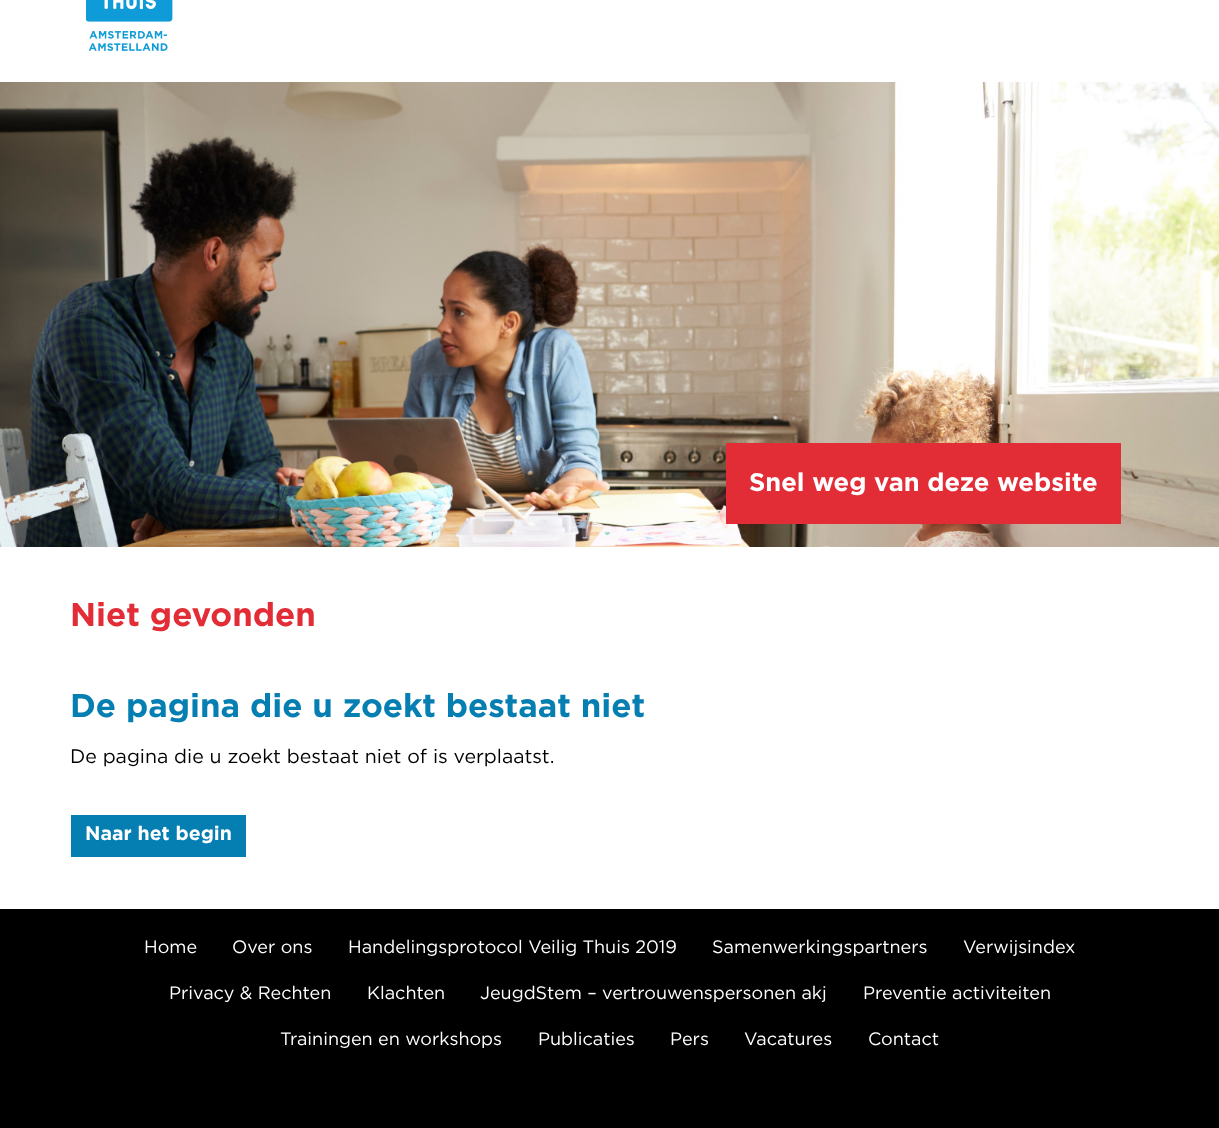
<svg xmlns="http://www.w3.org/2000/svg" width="1219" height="1128">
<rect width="100%" height="100%" fill="#fff"/>
<image x="86" y="0" width="87" height="51" href="media/1.png"/>
<image x="0" y="82" width="1219" height="465" href="media/2.png"/>
<rect x="726" y="443" width="395" height="81" fill="#e22d37"/>
<text x="749" y="491" style="font-family:Gotham;font-size:25.5px;font-weight:bold;fill:#fff">Snel weg van deze website</text>
<text x="70" y="626" style="font-family:Gotham;font-size:33px;font-weight:bold;fill:#e22d37">Niet gevonden</text>
<text x="70" y="717" style="font-family:Gotham;font-size:33px;font-weight:bold;fill:#057eb2">De pagina die u zoekt bestaat niet</text>
<text x="70" y="763" style="font-family:Gotham;font-size:19.5px;fill:#000">De pagina die u zoekt bestaat niet of is verplaatst.</text>
<rect x="71" y="815" width="175" height="42" fill="#057eb2"/>
<text x="85" y="840" style="font-family:Gotham;font-size:19.5px;font-weight:bold;fill:#fff">Naar het begin</text>
<rect y="909" width="1219" height="219" fill="#000"/>
<text x="144" y="953" style="font-family:Gotham;font-size:18px;fill:#fff">Home</text>
<text x="232" y="953" style="font-family:Gotham;font-size:18px;fill:#fff">Over ons</text>
<text x="348" y="953" style="font-family:Gotham;font-size:18px;fill:#fff">Handelingsprotocol Veilig Thuis 2019</text>
<text x="712" y="953" style="font-family:Gotham;font-size:18px;fill:#fff">Samenwerkingspartners</text>
<text x="963" y="953" style="font-family:Gotham;font-size:18px;fill:#fff">Verwijsindex</text>
<text x="169" y="999" style="font-family:Gotham;font-size:18px;fill:#fff">Privacy &amp; Rechten</text>
<text x="367" y="999" style="font-family:Gotham;font-size:18px;fill:#fff">Klachten</text>
<text x="480" y="999" style="font-family:Gotham;font-size:18px;fill:#fff">JeugdStem – vertrouwenspersonen akj</text>
<text x="863" y="999" style="font-family:Gotham;font-size:18px;fill:#fff">Preventie activiteiten</text>
<text x="280" y="1045" style="font-family:Gotham;font-size:18px;fill:#fff">Trainingen en workshops</text>
<text x="538" y="1045" style="font-family:Gotham;font-size:18px;fill:#fff">Publicaties</text>
<text x="670" y="1045" style="font-family:Gotham;font-size:18px;fill:#fff">Pers</text>
<text x="744" y="1045" style="font-family:Gotham;font-size:18px;fill:#fff">Vacatures</text>
<text x="868" y="1045" style="font-family:Gotham;font-size:18px;fill:#fff">Contact</text>
</svg>
